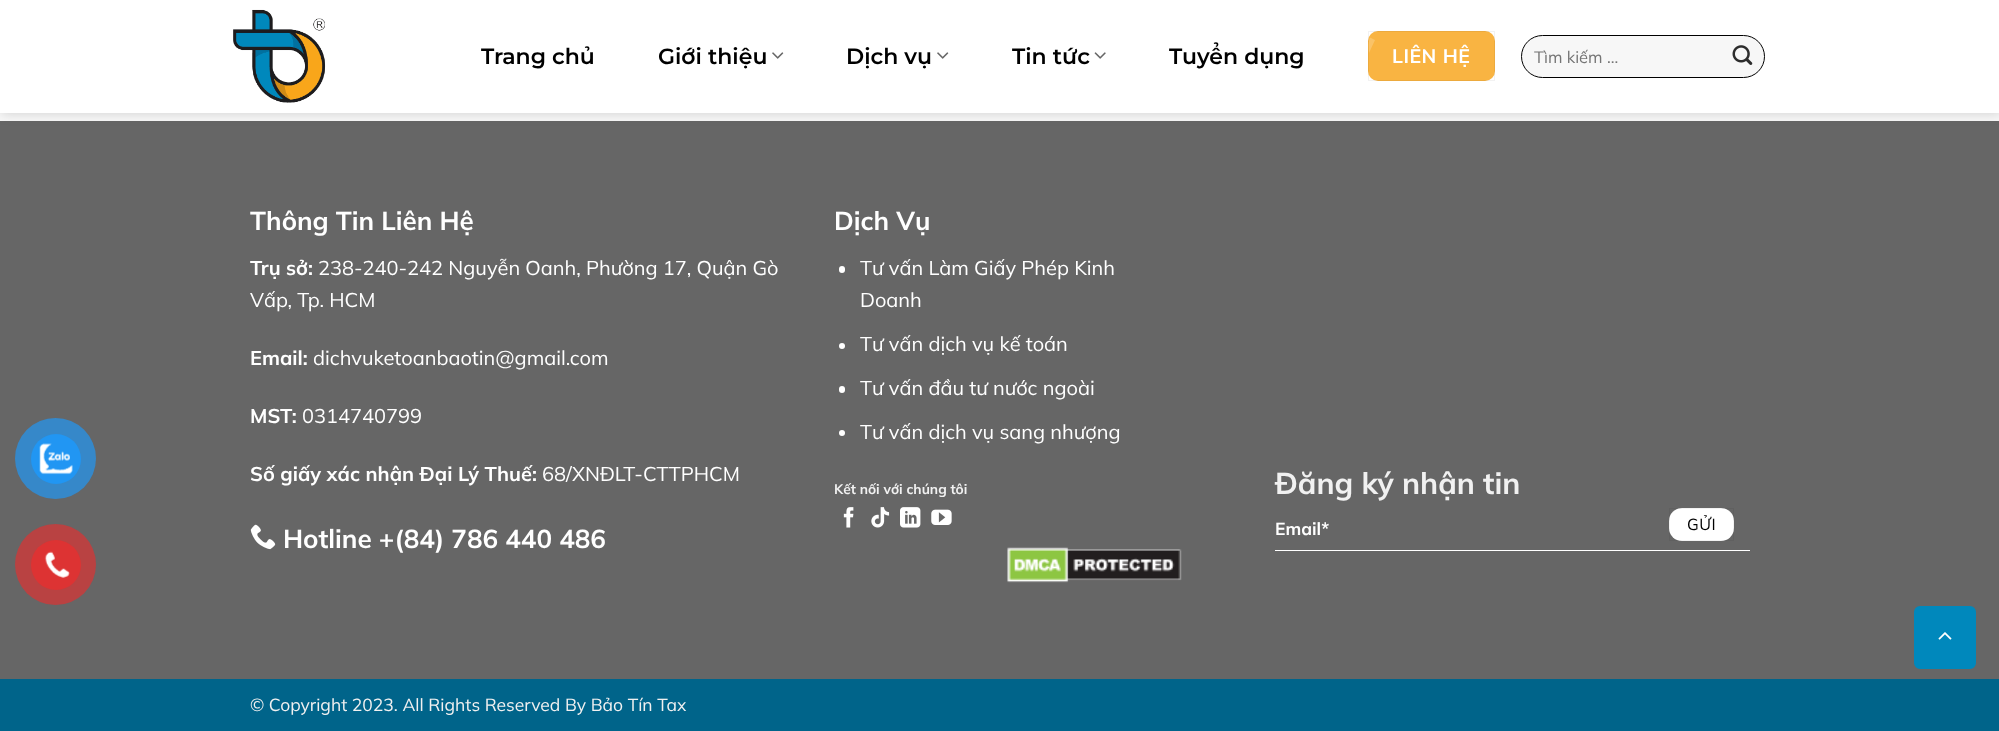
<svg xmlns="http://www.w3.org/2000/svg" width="1999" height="731">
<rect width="100%" height="100%" fill="#f8f8f8"/>
<rect y="121" width="1999" height="558" fill="#666"/>
<circle cx="55.5" cy="458.5" r="40.5" fill="#3688c9"/>
<circle cx="56" cy="459" r="25" fill="#2196f3"/>
<image x="39" y="443" width="34" height="32" href="media/1.png"/>
<circle cx="55.5" cy="564.5" r="40.5" fill="#b94242"/>
<circle cx="56" cy="565" r="25" fill="#d33"/>
<image x="44" y="551" width="26" height="27" href="media/2.png"/>
<rect x="1" y="1" width="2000" height="113" fill="#00000026" filter="blur(6px)"/>
<rect width="1999" height="113" fill="#fff"/>
<image x="233" y="9" width="93" height="94" href="media/3.png"/>
<text x="481" y="64" style="font-family:Montserrat;font-size:22px;font-weight:600;fill:#000">Trang chủ</text>
<text x="658" y="64" style="font-family:Montserrat;font-size:22px;font-weight:600;fill:#000">Giới thiệu</text>
<image x="772" y="52" width="12" height="7" href="media/4.png"/>
<text x="846" y="64" style="font-family:Montserrat;font-size:22px;font-weight:600;fill:#000">Dịch vụ</text>
<image x="937" y="52" width="12" height="7" href="media/4.png"/>
<text x="1012" y="64" style="font-family:Montserrat;font-size:22px;font-weight:600;fill:#000">Tin tức</text>
<image x="1094" y="52" width="12" height="7" href="media/5.png"/>
<text x="1169" y="64" style="font-family:Montserrat;font-size:22px;font-weight:600;fill:#000">Tuyển dụng</text>
<rect x="1368" y="31" width="127" height="50" rx="10" fill="#f9b442"/>
<rect x="1368.5" y="31.5" width="126" height="49" fill="none" stroke="#0000000d"/>
<path d="M1370 37.5l5 2.5l-6 13c0-4-1-11.5 1-15.5z" fill="#fac368"/>
<text x="1392" y="63" style="font-family:Mulish;font-size:19.5px;font-weight:bold;letter-spacing:0.5px;fill:#fff">LIÊN HỆ</text>
<rect x="1521.5" y="35.5" width="243" height="42" rx="21" fill="#f7f7f7" stroke="#000"/>
<text x="1534" y="63" style="font-family:Mulish;font-size:16.5px;fill:#757575">Tìm kiếm ...</text>
<image x="1732" y="45" width="21" height="20" href="media/6.png"/>
<text x="250" y="230" style="font-family:Mulish;font-size:25.9px;font-weight:bold;fill:#fff">Thông Tin Liên Hệ</text>
<text x="250" y="275" style="font-family:Mulish;font-size:20px;font-weight:bold;fill:#fff">Trụ sở:</text>
<text x="318" y="275" style="font-family:Mulish;font-size:20px;fill:#fff">238-240-242 Nguyễn Oanh, Phường 17, Quận Gò</text>
<text x="250" y="307" style="font-family:Mulish;font-size:20px;fill:#fff">Vấp, Tp. HCM</text>
<text x="250" y="365" style="font-family:Mulish;font-size:20px;font-weight:bold;fill:#fff">Email:</text>
<text x="313" y="365" style="font-family:Mulish;font-size:20px;fill:#fff">dichvuketoanbaotin@gmail.com</text>
<text x="250" y="423" style="font-family:Mulish;font-size:20px;font-weight:bold;fill:#fff">MST:</text>
<text x="302" y="423" style="font-family:Mulish;font-size:20px;fill:#fff">0314740799</text>
<text x="250" y="481" style="font-family:Mulish;font-size:20px;font-weight:bold;fill:#fff">Số giấy xác nhận Đại Lý Thuế:</text>
<text x="542" y="481" style="font-family:Mulish;font-size:20px;fill:#fff">68/XNĐLT-CTTPHCM</text>
<image x="250" y="524" width="26" height="26" href="media/7.png"/>
<text x="283" y="548" style="font-family:Mulish;font-size:26px;font-weight:bold;fill:#fff">Hotline +(84) 786 440 486</text>
<text x="834" y="230" style="font-family:Mulish;font-size:25.9px;font-weight:bold;fill:#fff">Dịch Vụ</text>
<rect x="839" y="266" width="6" height="7" rx="3" fill="#fff"/>
<text x="860" y="275" style="font-family:Mulish;font-size:20px;fill:#fff">Tư vấn Làm Giấy Phép Kinh</text>
<text x="860" y="307" style="font-family:Mulish;font-size:20px;fill:#fff">Doanh</text>
<circle cx="842" cy="346" r="3" fill="#fff"/>
<text x="860" y="351" style="font-family:Mulish;font-size:20px;fill:#fff">Tư vấn dịch vụ kế toán</text>
<rect x="839" y="386" width="6" height="7" rx="3" fill="#fff"/>
<text x="860" y="395" style="font-family:Mulish;font-size:20px;fill:#fff">Tư vấn đầu tư nước ngoài</text>
<circle cx="842" cy="433" r="3" fill="#fff"/>
<text x="860" y="439" style="font-family:Mulish;font-size:20px;fill:#fff">Tư vấn dịch vụ sang nhượng</text>
<text x="834" y="494" style="font-family:Mulish;font-size:13.75px;font-weight:bold;fill:#f1f1f1">Kết nối với chúng tôi</text>
<image x="843" y="507" width="11" height="21" href="media/8.png"/>
<image x="871" y="507" width="19" height="21" href="media/9.png"/>
<image x="900" y="507" width="21" height="21" href="media/10.png"/>
<image x="931" y="509" width="21" height="16" href="media/11.png"/>
<image x="1007" y="547" width="175" height="36" href="media/12.png"/>
<text x="1275" y="494" style="font-family:Mulish;font-size:30px;font-weight:bold;fill:#f1f1f1">Đăng ký nhận tin</text>
<rect x="1275" y="550" width="475" height="1" fill="#fff"/>
<text x="1275" y="535" style="font-family:Mulish;font-size:17.5px;font-weight:bold;fill:#fff">Email*</text>
<rect x="1669" y="508" width="65" height="33" rx="13" fill="#fff"/>
<rect x="1669.5" y="508.5" width="64" height="32" fill="none" stroke="#0000000d"/>
<text x="1687" y="530" style="font-family:Mulish;font-size:16px;letter-spacing:0.5px;fill:#000">GỬI</text>
<rect x="1915.5" y="607.5" width="59" height="60" rx="4.5" fill="#0088bc" stroke="#0088bc" stroke-width="3"/>
<image x="1938" y="632" width="14" height="8" href="media/13.png"/>
<rect y="679" width="1999" height="52" fill="#00648a"/>
<text x="250" y="711" style="font-family:Mulish;font-size:17.5px;fill:#f1f1f1">© Copyright 2023. All Rights Reserved By Bảo Tín Tax</text>
</svg>
